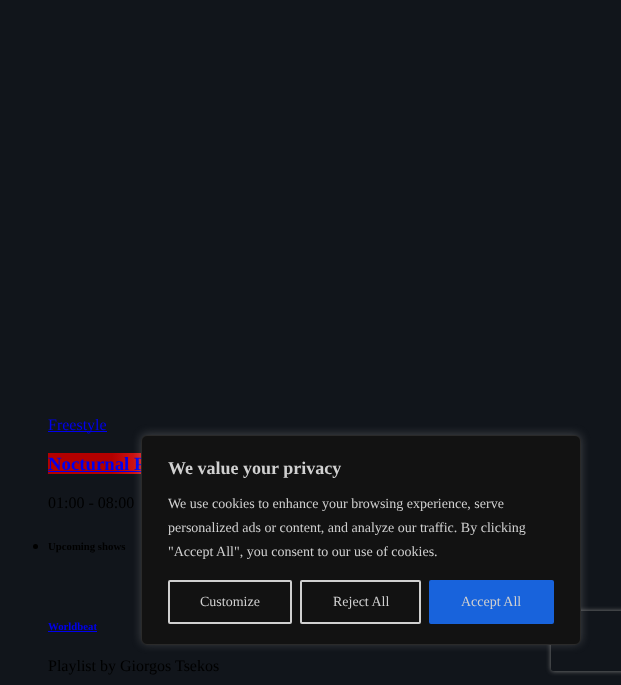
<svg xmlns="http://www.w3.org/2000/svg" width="621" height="685">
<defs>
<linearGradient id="g1" gradientUnits="userSpaceOnUse" x1="48" y1="464" x2="176" y2="464"><stop offset="0.5" stop-color="#b30000"/><stop offset="1" stop-color="#ff3636"/><stop offset="1" stop-color="#fff"/></linearGradient>
<clipPath id="clip1"><path d="M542 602h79v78h-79zm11 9h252c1 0 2 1 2 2v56c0 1-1 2-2 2h-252c-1 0-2-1-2-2v-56c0-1 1-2 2-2z" clip-rule="evenodd"/></clipPath>
</defs>
<rect width="100%" height="100%" fill="#11151b"/>
<rect x="48" y="431" width="59" height="1" fill="#00e"/>
<text x="48" y="430" style="font-family:Liberation Serif;font-size:16px;fill:#00e">Freestyle</text>
<rect x="48" y="453" width="93" height="21" fill="url(#g1)"/>
<text x="48" y="470" style="font-family:Liberation Serif;font-size:18.75px;font-weight:bold;fill:#00e">Nocturnal P</text>
<rect x="48" y="471" width="93" height="1" fill="#00e"/>
<text x="48" y="508" style="font-family:Liberation Serif;font-size:16px;fill:#000">01:00 - 08:00</text>
<circle cx="35.5" cy="546.5" r="2.5" fill="#000"/>
<text x="48" y="550" style="font-family:Liberation Serif;font-size:10.75px;font-weight:bold;fill:#000">Upcoming shows</text>
<text x="48" y="630" style="font-family:Liberation Serif;font-size:10.75px;font-weight:bold;fill:#00e">Worldbeat</text>
<rect x="48" y="631" width="49" height="1" fill="#00e"/>
<text x="48" y="671" style="font-family:Liberation Serif;font-size:16px;fill:#000">Playlist by Giorgos Tsekos</text>
<rect x="141" y="434" width="440" height="210" rx="6" fill="#acabab4d" filter="blur(5px)"/>
<g clip-path="url(#clip1)">
<rect x="551" y="611" width="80" height="60" rx="2" fill="#808080" filter="blur(2.5px)"/>
</g>
<rect x="141.5" y="435.5" width="439" height="209" rx="5.5" fill="#121212" stroke="#2a2a2a"/>
<text x="168" y="474" style="font-family:Liberation Serif;font-size:18px;font-weight:bold;fill:#d0d0d0">We value your privacy</text>
<text x="168" y="508" style="font-family:Liberation Serif;font-size:14px;fill:#d0d0d0">We use cookies to enhance your browsing experience, serve</text>
<text x="168" y="532" style="font-family:Liberation Serif;font-size:14px;fill:#d0d0d0">personalized ads or content, and analyze our traffic. By clicking</text>
<text x="168" y="556" style="font-family:Liberation Serif;font-size:14px;fill:#d0d0d0">"Accept All", you consent to our use of cookies.</text>
<rect x="169" y="581" width="122" height="42" rx="1" fill="none" stroke="#d0d0d0" stroke-width="2"/>
<text x="200" y="606" style="font-family:Liberation Serif;font-size:14px;fill:#d0d0d0">Customize</text>
<rect x="301" y="581" width="119" height="42" rx="1" fill="none" stroke="#d0d0d0" stroke-width="2"/>
<text x="333" y="606" style="font-family:Liberation Serif;font-size:14px;fill:#d0d0d0">Reject All</text>
<rect x="430" y="581" width="123" height="42" rx="1" fill="#1863dc" stroke="#1863dc" stroke-width="2"/>
<text x="461" y="606" style="font-family:Liberation Serif;font-size:14px;fill:#d0d0d0">Accept All</text>
</svg>
